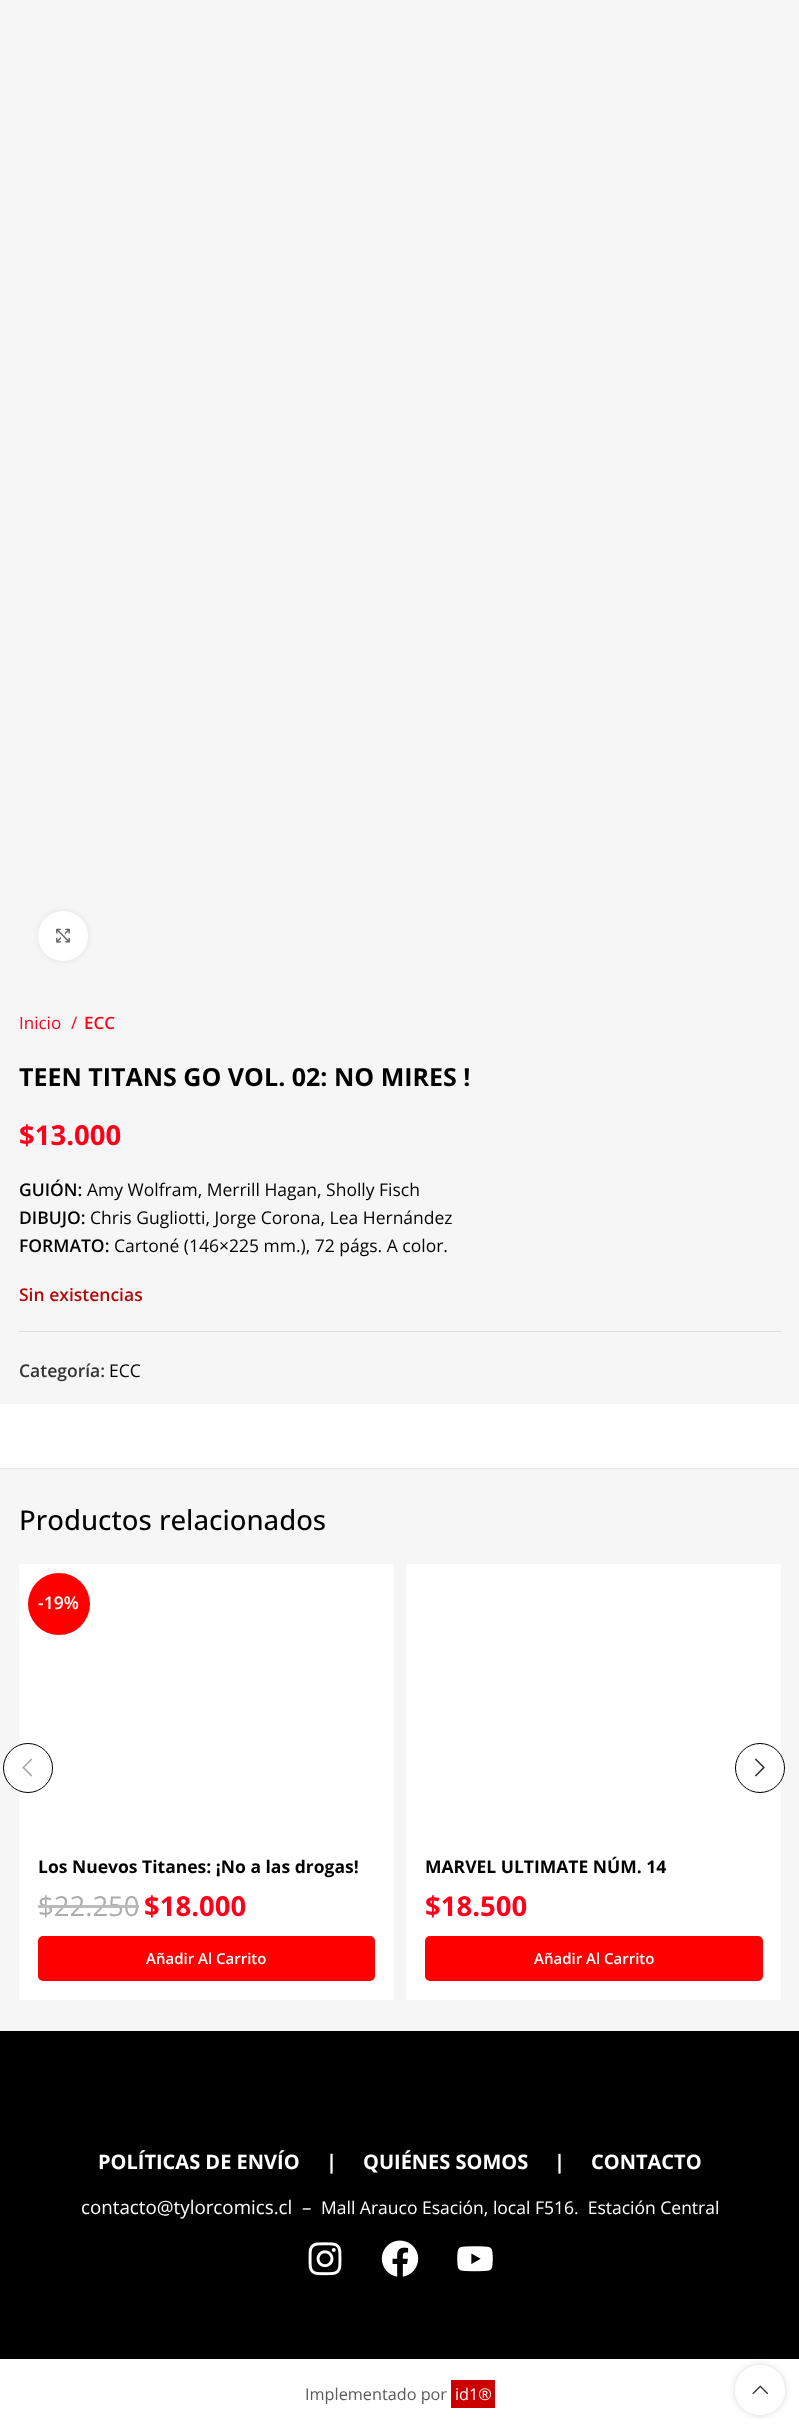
<svg xmlns="http://www.w3.org/2000/svg" width="799" height="2429">
<defs>
<clipPath id="clip1"><path d="M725 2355h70v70h-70zm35 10c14 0 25 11 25 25c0 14-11 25-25 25c-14 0-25-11-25-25c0-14 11-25 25-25z" clip-rule="evenodd"/></clipPath>
</defs>
<rect width="100%" height="100%" fill="#f6f6f6"/>
<rect x="38" y="911" width="50" height="50" rx="25" fill="#00000014" filter="blur(3px)"/>
<circle cx="63" cy="936" r="25" fill="#fff"/>
<image x="56" y="928" width="14" height="15" href="media/1.png"/>
<text x="19" y="1029" style="font-family:Open Sans;font-size:17px;fill:#ff001a">Inicio</text>
<text x="71" y="1029" style="font-family:Open Sans;font-size:17px;fill:#ff001a">/</text>
<text x="84" y="1029" style="font-family:Open Sans;font-size:17px;font-weight:600;fill:#ff001a">ECC</text>
<text x="19" y="1086" style="font-family:Open Sans;font-size:25px;font-weight:bold;fill:#000">TEEN TITANS GO VOL. 02: NO MIRES !</text>
<text x="19" y="1145" style="font-family:Open Sans;font-size:27.5px;font-weight:bold;fill:#ff001a">$13.000</text>
<text x="19" y="1196" style="font-family:Open Sans;font-size:17.5px;font-weight:600;fill:#000">GUIÓN:</text>
<text x="87" y="1196" style="font-family:Open Sans;font-size:17.5px;fill:#000">Amy Wolfram, Merrill Hagan, Sholly Fisch</text>
<text x="19" y="1224" style="font-family:Open Sans;font-size:17.5px;font-weight:600;fill:#000">DIBUJO:</text>
<text x="90" y="1224" style="font-family:Open Sans;font-size:17.5px;fill:#000">Chris Gugliotti, Jorge Corona, Lea Hernández</text>
<text x="19" y="1252" style="font-family:Open Sans;font-size:17.5px;font-weight:600;fill:#000">FORMATO:</text>
<text x="114" y="1252" style="font-family:Open Sans;font-size:17.5px;fill:#000">Cartoné (146×225 mm.), 72 págs. A color.</text>
<text x="19" y="1301" style="font-family:Open Sans;font-size:17.5px;font-weight:600;fill:#b50808">Sin existencias</text>
<rect x="19" y="1331" width="762" height="1" fill="#dcdcdc"/>
<text x="19" y="1377" style="font-family:Open Sans;font-size:17.5px;font-weight:600;fill:#333">Categoría:</text>
<text x="109" y="1377" style="font-family:Open Sans;font-size:17.5px;fill:#000">ECC</text>
<rect y="1404" width="799" height="64" fill="#fff"/>
<rect y="1468" width="799" height="1" fill="#e4e4e4"/>
<text x="19" y="1530" style="font-family:Open Sans;font-size:27.5px;font-weight:500;fill:#000">Productos relacionados</text>
<rect x="19" y="1564" width="375" height="436" fill="#fff"/>
<circle cx="59" cy="1604" r="31" fill="#f00"/>
<text x="38" y="1609" style="font-family:Open Sans;font-size:17.5px;font-weight:600;fill:#fff">-19%</text>
<text x="38" y="1873" style="font-family:Open Sans;font-size:17.5px;font-weight:bold;fill:#000">Los Nuevos Titanes: ¡No a las drogas!</text>
<text x="38" y="1916" style="font-family:Open Sans;font-size:27.5px;fill:#adacac">$22.250</text>
<rect x="38" y="1905" width="101" height="3" fill="#bbb"/>
<text x="144" y="1916" style="font-family:Open Sans;font-size:27.5px;font-weight:bold;fill:#ff001a">$18.000</text>
<rect x="38" y="1936" width="337" height="45" rx="5" fill="#f00"/>
<text x="146" y="1964" style="font-family:Open Sans;font-size:15px;font-weight:600;fill:#fff">Añadir Al Carrito</text>
<rect x="406" y="1564" width="375" height="436" fill="#fff"/>
<text x="425" y="1873" style="font-family:Open Sans;font-size:17.5px;font-weight:bold;fill:#000">MARVEL ULTIMATE NÚM. 14</text>
<text x="425" y="1916" style="font-family:Open Sans;font-size:27.5px;font-weight:bold;fill:#ff001a">$18.500</text>
<rect x="425" y="1936" width="338" height="45" rx="5" fill="#f00"/>
<text x="534" y="1964" style="font-family:Open Sans;font-size:15px;font-weight:600;fill:#fff">Añadir Al Carrito</text>
<circle cx="28" cy="1768" r="24.5" fill="#fff" stroke="#000"/>
<image x="22" y="1758" width="11" height="19" href="media/2.png"/>
<circle cx="760" cy="1768" r="24.5" fill="#fff" stroke="#000"/>
<image x="755" y="1758" width="10" height="19" href="media/3.png"/>
<rect y="2031" width="799" height="328" fill="#000"/>
<text x="98" y="2169" style="font-family:Open Sans;font-size:20px;font-weight:bold;fill:#fff">POLÍTICAS DE ENVÍO</text>
<text x="326" y="2169" style="font-family:Open Sans;font-size:20px;font-weight:bold;fill:#fff">|</text>
<text x="363" y="2169" style="font-family:Open Sans;font-size:20px;font-weight:bold;fill:#fff">QUIÉNES SOMOS</text>
<text x="554" y="2169" style="font-family:Open Sans;font-size:20px;font-weight:bold;fill:#fff">|</text>
<text x="591" y="2169" style="font-family:Open Sans;font-size:20px;font-weight:bold;fill:#fff">CONTACTO</text>
<text x="81" y="2214" style="font-family:Open Sans;font-size:18.75px;fill:#fff">contacto@tylorcomics.cl</text>
<text x="302" y="2214" style="font-family:Open Sans;font-size:18.75px;fill:#fff">–</text>
<text x="321" y="2214" style="font-family:Open Sans;font-size:17.5px;fill:#fff" xml:space="preserve">Mall Arauco Esación, local F516.  Estación Central</text>
<image x="308" y="2242" width="34" height="34" href="media/4.png"/>
<image x="381" y="2240" width="38" height="37" href="media/5.png"/>
<image x="457" y="2246" width="36" height="26" href="media/6.png"/>
<rect y="2359" width="799" height="70" fill="#fff"/>
<text x="305" y="2400" style="font-family:Open Sans;font-size:16.25px;fill:#5b5b5b">Implementado por</text>
<rect x="451" y="2380" width="44" height="28" fill="#c00"/>
<text x="455" y="2400" style="font-family:Open Sans;font-size:16.25px;fill:#fff">id1®</text>
<g clip-path="url(#clip1)">
<rect x="735" y="2365" width="50" height="50" rx="25" fill="#0000002b" filter="blur(3px)"/>
</g>
<circle cx="760" cy="2390" r="25" fill="#ffffffe6"/>
<image x="752" y="2385" width="17" height="10" href="media/7.png"/>
</svg>
